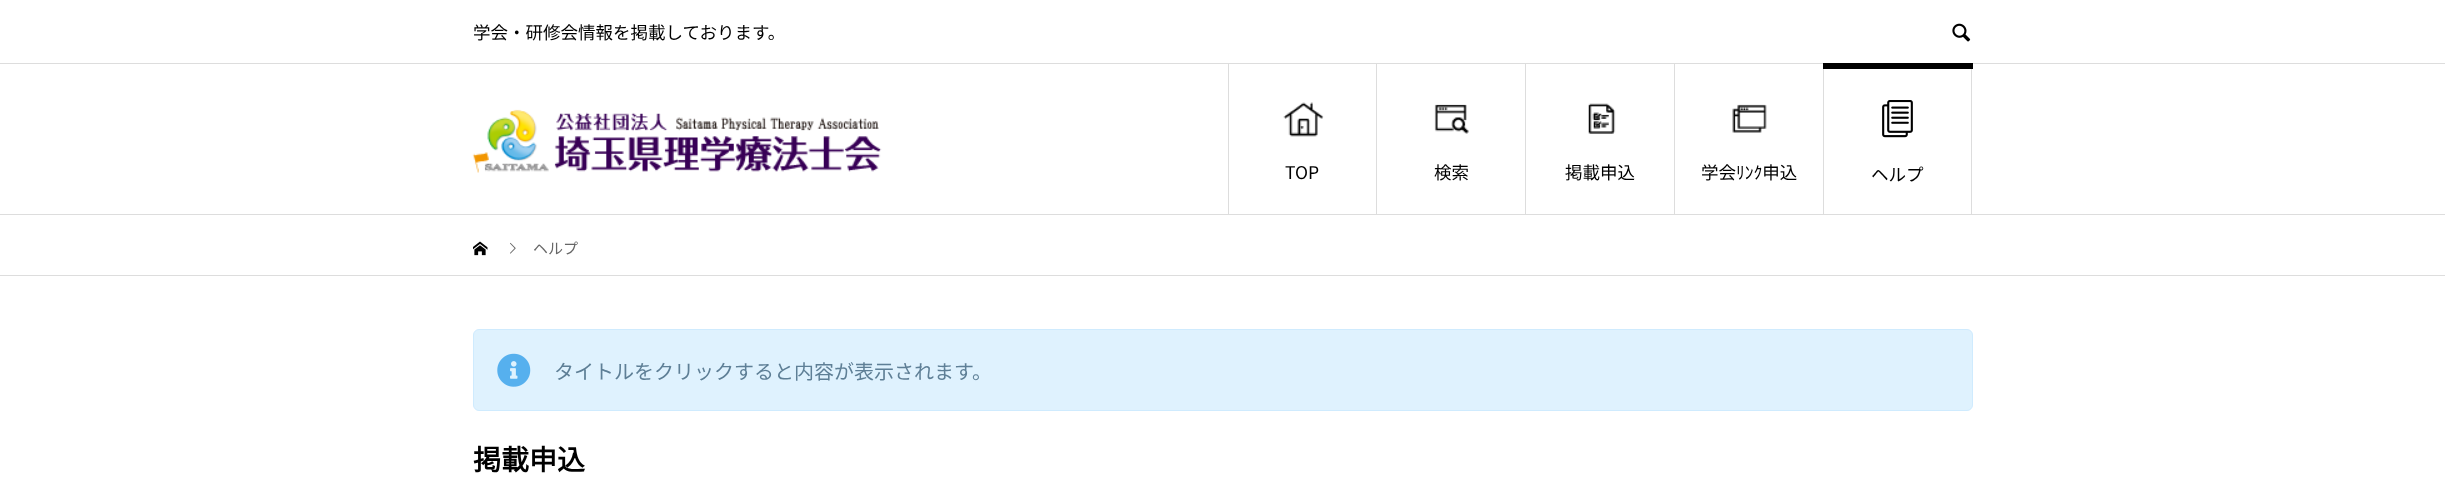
<svg xmlns="http://www.w3.org/2000/svg" width="2445" height="501">
<rect width="100%" height="100%" fill="#fff"/>
<rect y="63" width="2445" height="1" fill="#ddd"/>
<text x="473" y="39" style="font-family:Noto Sans JP;font-size:17.5px;font-weight:100;fill:#000">学会・研修会情報を掲載しております。</text>
<image x="1952" y="23" width="19" height="19" href="media/1.png"/>
<image x="472" y="109" width="410" height="64" href="media/2.png"/>
<rect x="1376" y="64" width="1" height="150" fill="#ddd"/>
<rect x="1228" y="64" width="1" height="150" fill="#ddd"/>
<image x="1283" y="102" width="41" height="35" href="media/3.png"/>
<text x="1285" y="179" style="font-family:Noto Sans JP;font-size:17.5px;font-weight:100;fill:#000">TOP</text>
<rect x="1525" y="64" width="1" height="150" fill="#ddd"/>
<image x="1434" y="104" width="35" height="30" href="media/4.png"/>
<text x="1434" y="179" style="font-family:Noto Sans JP;font-size:17.5px;font-weight:100;fill:#000">検索</text>
<rect x="1674" y="64" width="1" height="150" fill="#ddd"/>
<image x="1588" y="103" width="28" height="31" href="media/5.png"/>
<text x="1565" y="179" style="font-family:Noto Sans JP;font-size:17.5px;font-weight:100;fill:#000">掲載申込</text>
<rect x="1823" y="64" width="1" height="150" fill="#ddd"/>
<image x="1732" y="104" width="35" height="29" href="media/6.png"/>
<text x="1701" y="179" style="font-family:Noto Sans JP;font-size:17.5px;font-weight:100;fill:#000">学会ﾘﾝｸ申込</text>
<rect x="1971" y="64" width="1" height="150" fill="#ddd"/>
<rect x="1823" y="63" width="150" height="6" fill="#000"/>
<image x="1882" y="100" width="31" height="38" href="media/7.png"/>
<text x="1871" y="181" style="font-family:Noto Sans JP;font-size:17.5px;font-weight:100;fill:#000">ヘルプ</text>
<rect y="214" width="2445" height="1" fill="#ddd"/>
<rect y="275" width="2445" height="1" fill="#ddd"/>
<image x="473" y="241" width="15" height="15" href="media/8.png"/>
<image x="510" y="242" width="6" height="12" href="media/9.png"/>
<text x="533" y="254" style="font-family:Noto Sans JP;font-size:15px;font-weight:100;fill:#666">ヘルプ</text>
<rect x="473.5" y="329.5" width="1499" height="81" rx="5.5" fill="#dff2fe" stroke="#cfebfe"/>
<image x="497" y="353" width="34" height="34" href="media/10.png"/>
<text x="554" y="379" style="font-family:Noto Sans JP;font-size:20px;font-weight:100;fill:#5e7f96">タイトルをクリックすると内容が表示されます。</text>
<text x="473" y="470" style="font-family:Noto Sans JP;font-size:28px;font-weight:bold;fill:#000">掲載申込</text>
</svg>
